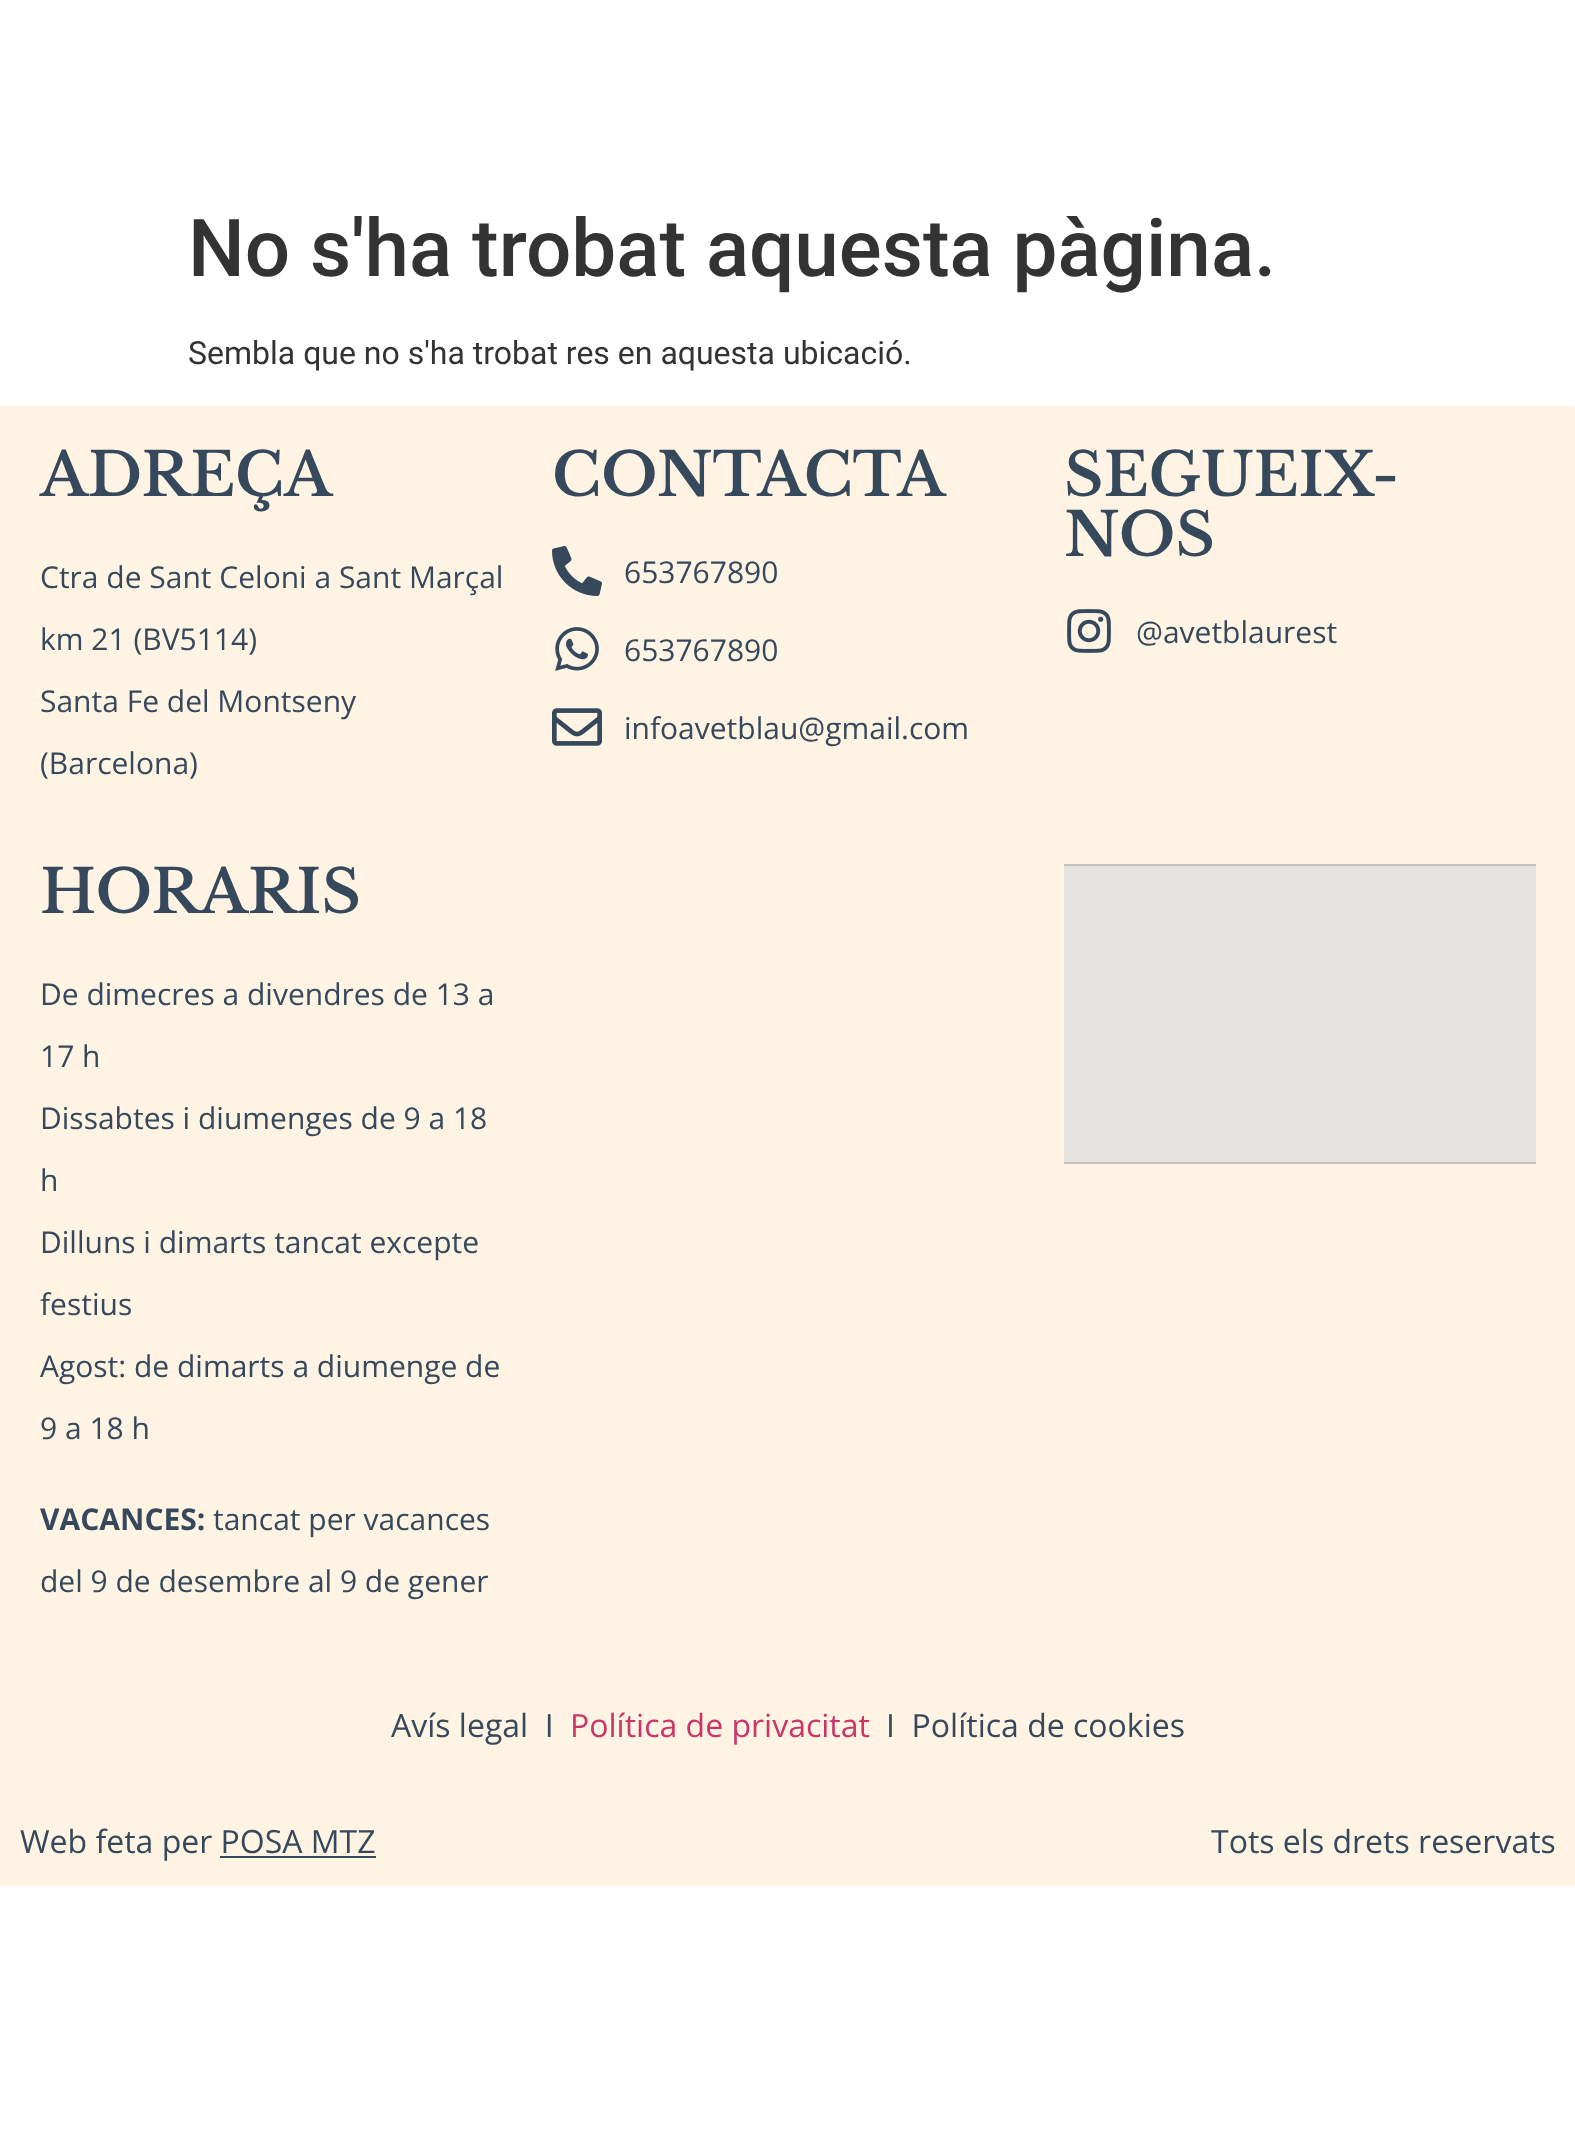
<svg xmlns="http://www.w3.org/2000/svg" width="1575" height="2146">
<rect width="100%" height="100%" fill="#fff"/>
<text x="188" y="276" style="font-family:Roboto;font-size:80px;font-weight:500;fill:#333">No s'ha trobat aquesta pàgina.</text>
<text x="188" y="364" style="font-family:Roboto;font-size:32px;fill:#333">Sembla que no s'ha trobat res en aquesta ubicació.</text>
<rect y="406" width="1575" height="1480" fill="#fff4e4"/>
<text x="40" y="496" style="font-family:Libre Baskerville;font-size:60px;font-weight:600;fill:#35485c">ADREÇA</text>
<text x="40" y="588" style="font-family:Open Sans;font-size:30px;fill:#35485c">Ctra de Sant Celoni a Sant Marçal</text>
<text x="40" y="650" style="font-family:Open Sans;font-size:30px;fill:#35485c">km 21 (BV5114)</text>
<text x="40" y="712" style="font-family:Open Sans;font-size:30px;fill:#35485c">Santa Fe del Montseny</text>
<text x="40" y="774" style="font-family:Open Sans;font-size:30px;fill:#35485c">(Barcelona)</text>
<text x="552" y="496" style="font-family:Libre Baskerville;font-size:60px;font-weight:600;fill:#35485c">CONTACTA</text>
<image x="552" y="546" width="50" height="50" href="media/1.png"/>
<text x="624" y="583" style="font-family:Open Sans;font-size:30px;fill:#35485c">653767890</text>
<image x="555" y="627" width="44" height="44" href="media/2.png"/>
<text x="624" y="661" style="font-family:Open Sans;font-size:30px;fill:#35485c">653767890</text>
<image x="552" y="708" width="50" height="38" href="media/3.png"/>
<text x="624" y="739" style="font-family:Open Sans;font-size:30px;fill:#35485c">infoavetblau@gmail.com</text>
<text x="1064" y="496" style="font-family:Libre Baskerville;font-size:60px;font-weight:600;fill:#35485c">SEGUEIX-</text>
<text x="1064" y="556" style="font-family:Libre Baskerville;font-size:60px;font-weight:600;fill:#35485c">NOS</text>
<image x="1067" y="609" width="44" height="44" href="media/4.png"/>
<text x="1136" y="643" style="font-family:Open Sans;font-size:30px;fill:#35485c">@avetblaurest</text>
<text x="40" y="913" style="font-family:Libre Baskerville;font-size:60px;font-weight:600;fill:#35485c">HORARIS</text>
<text x="40" y="1005" style="font-family:Open Sans;font-size:30px;fill:#35485c">De dimecres a divendres de 13 a</text>
<text x="40" y="1067" style="font-family:Open Sans;font-size:30px;fill:#35485c">17 h</text>
<text x="40" y="1129" style="font-family:Open Sans;font-size:30px;fill:#35485c">Dissabtes i diumenges de 9 a 18</text>
<text x="40" y="1191" style="font-family:Open Sans;font-size:30px;fill:#35485c">h</text>
<text x="40" y="1253" style="font-family:Open Sans;font-size:30px;fill:#35485c">Dilluns i dimarts tancat excepte</text>
<text x="40" y="1315" style="font-family:Open Sans;font-size:30px;fill:#35485c">festius</text>
<text x="40" y="1377" style="font-family:Open Sans;font-size:30px;fill:#35485c">Agost: de dimarts a diumenge de</text>
<text x="40" y="1439" style="font-family:Open Sans;font-size:30px;fill:#35485c">9 a 18 h</text>
<text x="40" y="1530" style="font-family:Open Sans;font-size:30px;font-weight:bold;fill:#35485c">VACANCES:</text>
<text x="213" y="1530" style="font-family:Open Sans;font-size:30px;fill:#35485c">tancat per vacances</text>
<text x="40" y="1592" style="font-family:Open Sans;font-size:30px;fill:#35485c">del 9 de desembre al 9 de gener</text>
<image x="1064" y="864" width="472" height="300" href="media/5.png"/>
<text x="391" y="1737" style="font-family:Open Sans;font-size:32px;fill:#35485c" xml:space="preserve">Avís legal  I</text>
<text x="570" y="1737" style="font-family:Open Sans;font-size:32px;fill:#c36">Política de privacitat</text>
<text x="886" y="1737" style="font-family:Open Sans;font-size:32px;fill:#35485c" xml:space="preserve">I  Política de cookies</text>
<text x="20" y="1853" style="font-family:Open Sans;font-size:32px;fill:#35485c">Web feta per POSA MTZ</text>
<rect x="220" y="1856" width="156" height="2" fill="#35485c"/>
<text x="1211" y="1853" style="font-family:Open Sans;font-size:32px;fill:#35485c">Tots els drets reservats</text>
</svg>
